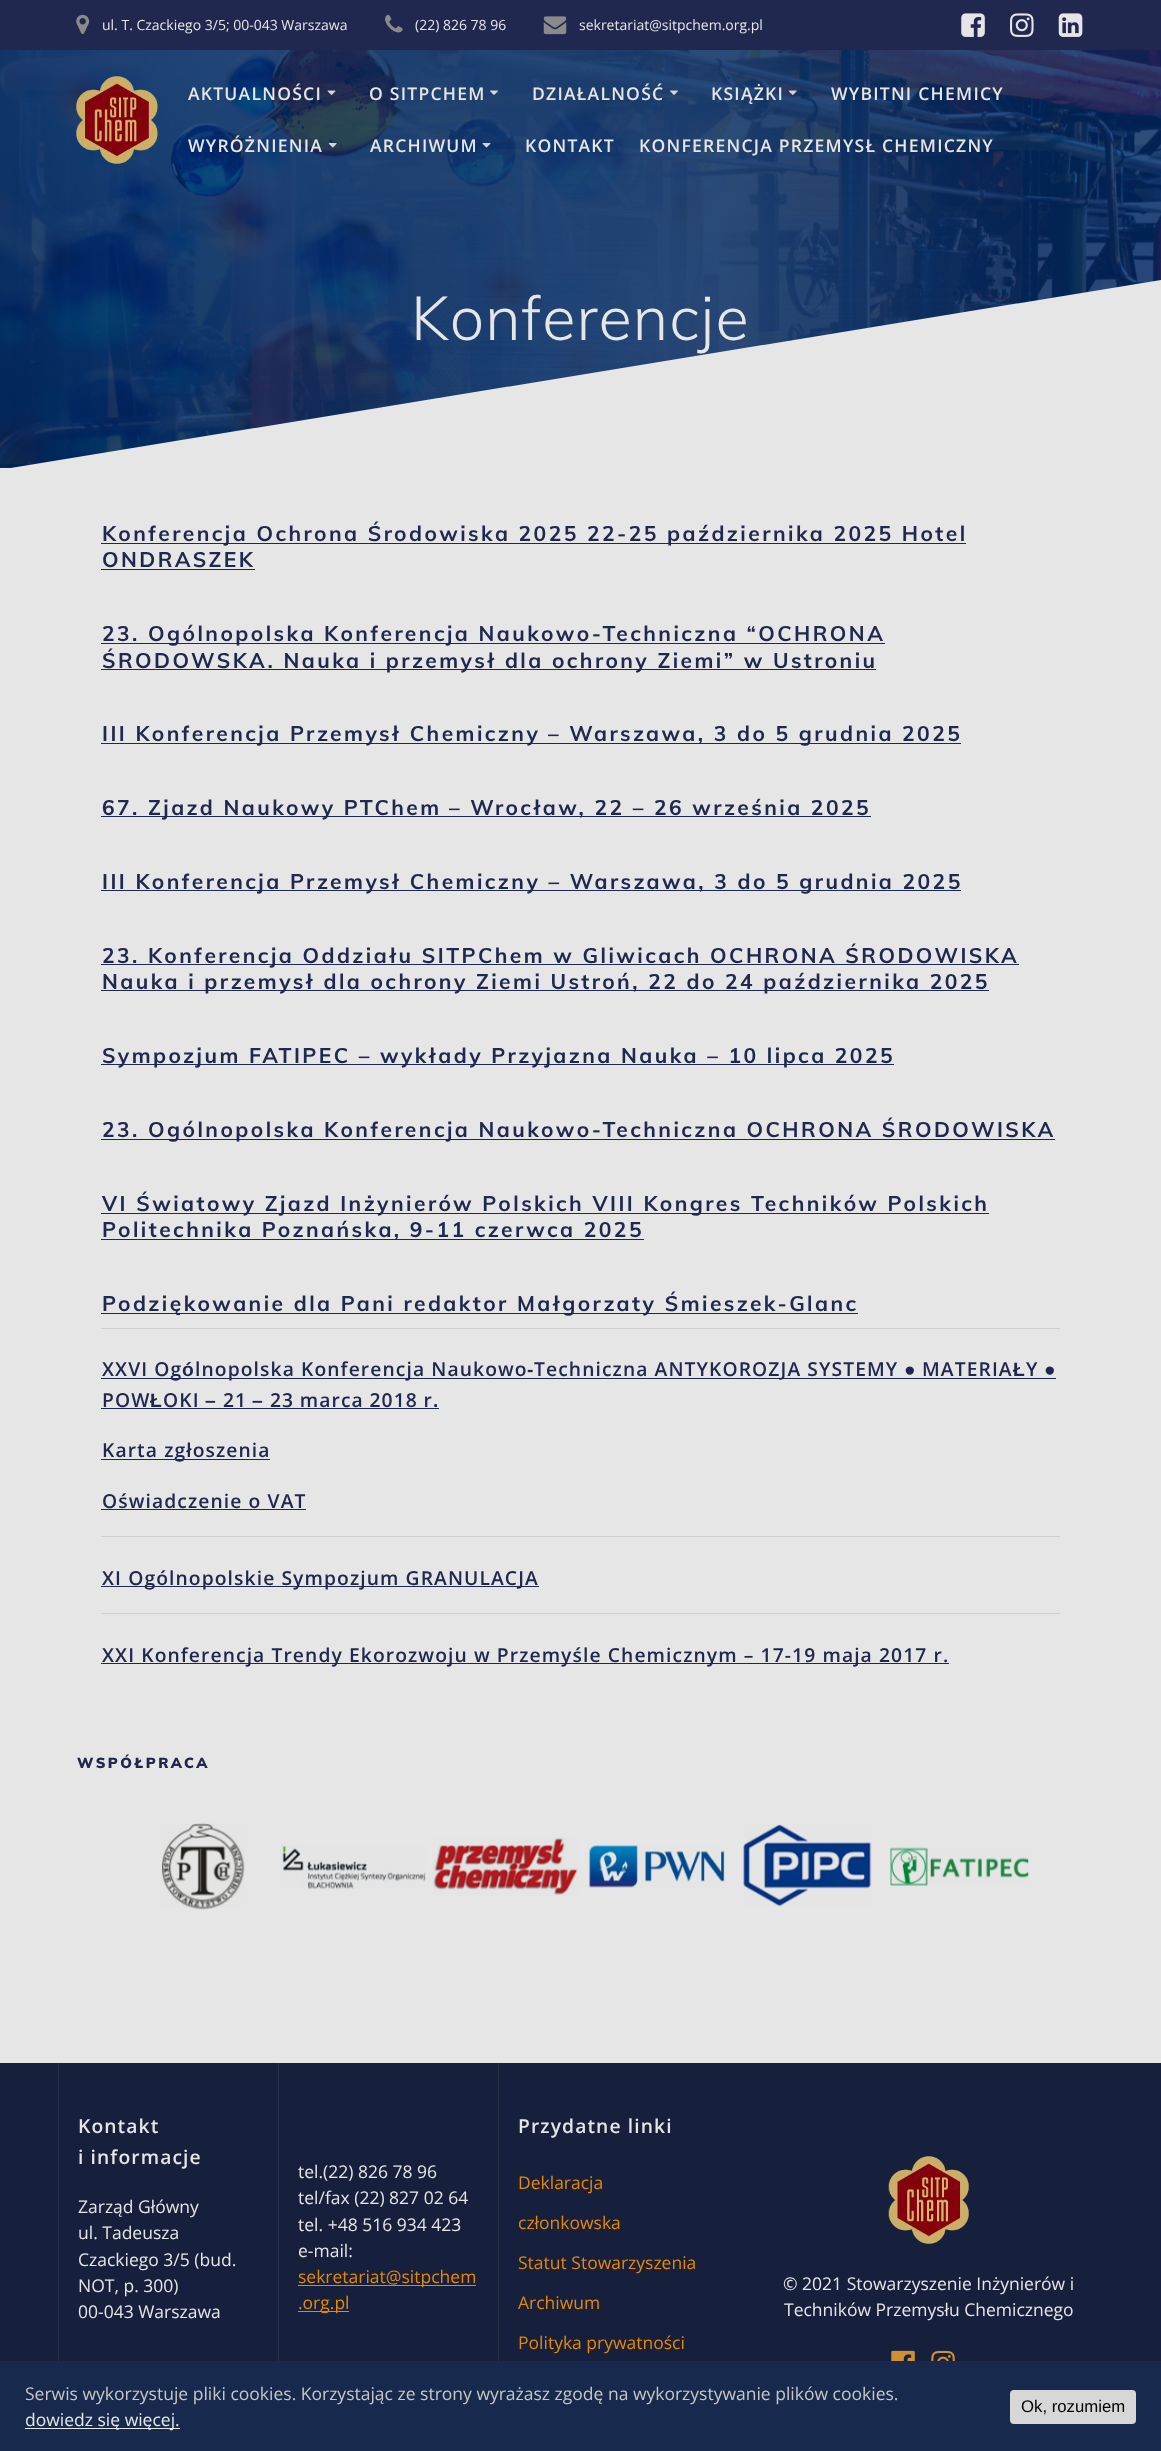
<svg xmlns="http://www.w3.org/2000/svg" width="1161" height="2451">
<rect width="100%" height="100%" fill="#e6e6e6"/>
<rect width="1161" height="50" fill="#202850"/>
<image x="76" y="14" width="14" height="21" href="media/1.png"/>
<text x="102" y="30" style="font-family:Open Sans;font-size:14px;fill:#e6e6e6">ul. T. Czackiego 3/5; 00-043 Warszawa</text>
<image x="385" y="14" width="18" height="19" href="media/2.png"/>
<text x="415" y="30" style="font-family:Open Sans;font-size:14px;fill:#e6e6e6">(22) 826 78 96</text>
<image x="543" y="16" width="24" height="19" href="media/3.png"/>
<text x="579" y="30" style="font-family:Open Sans;font-size:14px;fill:#e6e6e6">sekretariat@sitpchem.org.pl</text>
<image x="961" y="13" width="24" height="24" href="media/4.png"/>
<image x="1010" y="13" width="24" height="24" href="media/5.png"/>
<image x="1058" y="13" width="25" height="24" href="media/6.png"/>
<image x="0" y="50" width="1161" height="418" href="media/14.png"/>
<image x="76" y="76" width="82" height="88" href="media/7.png"/>
<text x="188" y="100" style="font-family:Open Sans;font-size:17.5px;font-weight:600;letter-spacing:1.25px;fill:#e6e6e6">AKTUALNOŚCI</text>
<image x="327" y="90" width="9" height="5" href="media/8.png"/>
<text x="369" y="100" style="font-family:Open Sans;font-size:17.5px;font-weight:600;letter-spacing:1.25px;fill:#e6e6e6">O SITPCHEM</text>
<image x="490" y="90" width="8" height="5" href="media/9.png"/>
<text x="532" y="100" style="font-family:Open Sans;font-size:17.5px;font-weight:600;letter-spacing:1.25px;fill:#e6e6e6">DZIAŁALNOŚĆ</text>
<image x="670" y="90" width="8" height="5" href="media/10.png"/>
<text x="711" y="100" style="font-family:Open Sans;font-size:17.5px;font-weight:600;letter-spacing:1.25px;fill:#e6e6e6">KSIĄŻKI</text>
<image x="788" y="90" width="9" height="5" href="media/11.png"/>
<text x="831" y="100" style="font-family:Open Sans;font-size:17.5px;font-weight:600;letter-spacing:1.25px;fill:#e6e6e6">WYBITNI CHEMICY</text>
<text x="188" y="152" style="font-family:Open Sans;font-size:17.5px;font-weight:600;letter-spacing:1.25px;fill:#e6e6e6">WYRÓŻNIENIA</text>
<image x="328" y="143" width="9" height="5" href="media/12.png"/>
<text x="370" y="152" style="font-family:Open Sans;font-size:17.5px;font-weight:600;letter-spacing:1.25px;fill:#e6e6e6">ARCHIWUM</text>
<image x="482" y="143" width="9" height="5" href="media/13.png"/>
<text x="525" y="152" style="font-family:Open Sans;font-size:17.5px;font-weight:600;letter-spacing:1.25px;fill:#e6e6e6">KONTAKT</text>
<text x="639" y="152" style="font-family:Open Sans;font-size:17.5px;font-weight:600;letter-spacing:1.25px;fill:#e6e6e6">KONFERENCJA PRZEMYSŁ CHEMICZNY</text>
<path d="M-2 470h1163v-190z" fill="#e6e6e6"/>
<text x="411" y="340" style="font-family:Muli;font-size:61.25px;font-weight:300;letter-spacing:1.1px;fill:#e6e6e6">Konferencje</text>
<rect x="101" y="543" width="865" height="1" fill="#202850"/>
<text x="102" y="541" style="font-family:Muli;font-size:21px;font-weight:bold;letter-spacing:2.45px;fill:#202850">Konferencja Ochrona Środowiska 2025 22-25 października 2025 Hotel</text>
<text x="102" y="567" style="font-family:Muli;font-size:21px;font-weight:bold;letter-spacing:2.45px;fill:#202850">ONDRASZEK</text>
<rect x="101" y="569" width="154" height="1" fill="#202850"/>
<rect x="101" y="643" width="784" height="1" fill="#202850"/>
<text x="102" y="641" style="font-family:Muli;font-size:21px;font-weight:bold;letter-spacing:2.45px;fill:#202850">23. Ogólnopolska Konferencja Naukowo-Techniczna “OCHRONA</text>
<rect x="101" y="669" width="775" height="1" fill="#202850"/>
<text x="102" y="668" style="font-family:Muli;font-size:21px;font-weight:bold;letter-spacing:2.45px;fill:#202850">ŚRODOWSKA. Nauka i przemysł dla ochrony Ziemi” w Ustroniu</text>
<rect x="101" y="743" width="860" height="1" fill="#202850"/>
<text x="102" y="741" style="font-family:Muli;font-size:21px;font-weight:bold;letter-spacing:2.45px;fill:#202850">III Konferencja Przemysł Chemiczny</text>
<text x="548" y="741" style="font-family:Muli;font-size:21px;font-weight:bold;letter-spacing:2.45px;fill:#202850">– Warszawa, 3 do 5 grudnia 2025</text>
<rect x="101" y="816" width="770" height="1" fill="#202850"/>
<text x="102" y="815" style="font-family:Muli;font-size:21px;font-weight:bold;letter-spacing:2.45px;fill:#202850">67. Zjazd Naukowy PTChem</text>
<text x="449" y="815" style="font-family:Muli;font-size:21px;font-weight:bold;letter-spacing:2.45px;fill:#202850">– Wrocław, 22 – 26 września 2025</text>
<rect x="101" y="890" width="860" height="1" fill="#202850"/>
<text x="102" y="889" style="font-family:Muli;font-size:21px;font-weight:bold;letter-spacing:2.45px;fill:#202850">III Konferencja Przemysł Chemiczny – Warszawa, 3 do 5 grudnia 2025</text>
<rect x="101" y="964" width="918" height="1" fill="#202850"/>
<text x="102" y="963" style="font-family:Muli;font-size:21px;font-weight:bold;letter-spacing:2.45px;fill:#202850">23. Konferencja Oddziału SITPChem w Gliwicach OCHRONA ŚRODOWISKA</text>
<rect x="101" y="990" width="888" height="1" fill="#202850"/>
<text x="102" y="989" style="font-family:Muli;font-size:21px;font-weight:bold;letter-spacing:2.45px;fill:#202850">Nauka i przemysł dla ochrony Ziemi Ustroń, 22 do 24 października 2025</text>
<rect x="101" y="1064" width="793" height="1" fill="#202850"/>
<text x="102" y="1063" style="font-family:Muli;font-size:21px;font-weight:bold;letter-spacing:2.45px;fill:#202850">Sympozjum FATIPEC – wykłady Przyjazna Nauka – 10 lipca 2025</text>
<rect x="101" y="1139" width="954" height="1" fill="#202850"/>
<text x="102" y="1137" style="font-family:Muli;font-size:21px;font-weight:bold;letter-spacing:2.45px;fill:#202850">23. Ogólnopolska Konferencja Naukowo-Techniczna OCHRONA ŚRODOWISKA</text>
<rect x="101" y="1213" width="888" height="1" fill="#202850"/>
<text x="102" y="1211" style="font-family:Muli;font-size:21px;font-weight:bold;letter-spacing:2.45px;fill:#202850">VI Światowy Zjazd Inżynierów Polskich VIII Kongres Techników Polskich</text>
<rect x="101" y="1239" width="543" height="1" fill="#202850"/>
<text x="102" y="1237" style="font-family:Muli;font-size:21px;font-weight:bold;letter-spacing:2.45px;fill:#202850">Politechnika Poznańska, 9-11 czerwca 2025</text>
<rect x="101" y="1313" width="757" height="1" fill="#202850"/>
<text x="102" y="1311" style="font-family:Muli;font-size:21px;font-weight:bold;letter-spacing:2.45px;fill:#202850">Podziękowanie dla Pani redaktor Małgorzaty Śmieszek-Glanc</text>
<rect x="101" y="1328" width="959" height="1" fill="#cfcfcf"/>
<rect x="101" y="1378" width="955" height="1" fill="#202850"/>
<text x="102" y="1376" style="font-family:Open Sans;font-size:19.25px;font-weight:600;letter-spacing:1.1px;fill:#202850">XXVI Og</text>
<text x="182" y="1376" style="font-family:Liberation Sans;font-size:19.25px;font-weight:bold;letter-spacing:1.1px;fill:#202850">ó</text>
<text x="195" y="1376" style="font-family:Open Sans;font-size:19.25px;font-weight:600;letter-spacing:1.1px;fill:#202850">lnopolska Konferencja Naukowo</text>
<text x="527" y="1376" style="font-family:Liberation Sans;font-size:19.25px;font-weight:bold;letter-spacing:1.1px;fill:#202850">-</text>
<text x="534" y="1376" style="font-family:Open Sans;font-size:19.25px;font-weight:600;letter-spacing:1.1px;fill:#202850">Techniczna ANTYKOROZJA SYSTEMY</text>
<text x="904" y="1376" style="font-family:Liberation Sans;font-size:19.25px;font-weight:bold;letter-spacing:1.1px;fill:#202850">●</text>
<text x="922" y="1376" style="font-family:Open Sans;font-size:19.25px;font-weight:600;letter-spacing:1.1px;fill:#202850">MATERIA</text>
<text x="1013" y="1376" style="font-family:Liberation Sans;font-size:19.25px;font-weight:bold;letter-spacing:1.1px;fill:#202850">Ł</text>
<text x="1026" y="1376" style="font-family:Open Sans;font-size:19.25px;font-weight:600;letter-spacing:1.1px;fill:#202850">Y</text>
<text x="1044" y="1376" style="font-family:Liberation Sans;font-size:19.25px;font-weight:bold;letter-spacing:1.1px;fill:#202850">●</text>
<text x="102" y="1407" style="font-family:Open Sans;font-size:19.25px;font-weight:600;letter-spacing:1.1px;fill:#202850">POW</text>
<text x="150" y="1407" style="font-family:Liberation Sans;font-size:19.25px;font-weight:bold;letter-spacing:1.1px;fill:#202850">Ł</text>
<text x="163" y="1407" style="font-family:Open Sans;font-size:19.25px;font-weight:600;letter-spacing:1.1px;fill:#202850">OKI</text>
<text x="205" y="1407" style="font-family:Liberation Sans;font-size:19.25px;font-weight:bold;letter-spacing:1.1px;fill:#202850">–</text>
<text x="223" y="1407" style="font-family:Open Sans;font-size:19.25px;font-weight:600;letter-spacing:1.1px;fill:#202850">21</text>
<text x="252" y="1407" style="font-family:Liberation Sans;font-size:19.25px;font-weight:bold;letter-spacing:1.1px;fill:#202850">–</text>
<text x="270" y="1407" word-spacing="-0.5" style="font-family:Open Sans;font-size:19.25px;font-weight:600;letter-spacing:1.1px;fill:#202850">23 marca 2018 r</text>
<text x="433" y="1407" style="font-family:Liberation Sans;font-size:19.25px;font-weight:bold;letter-spacing:1.1px;fill:#202850">.</text>
<rect x="101" y="1408" width="338" height="1" fill="#202850"/>
<rect x="101" y="1459" width="169" height="1" fill="#202850"/>
<text x="102" y="1457" style="font-family:Open Sans;font-size:19.25px;font-weight:600;letter-spacing:1.1px;fill:#202850">Karta zgłoszenia</text>
<text x="102" y="1508" style="font-family:Open Sans;font-size:19.25px;font-weight:600;letter-spacing:1.1px;fill:#202850">Oświadczenie o VAT</text>
<rect x="101" y="1509" width="205" height="1" fill="#202850"/>
<rect x="101" y="1536" width="959" height="1" fill="#cfcfcf"/>
<rect x="101" y="1586" width="438" height="1" fill="#202850"/>
<text x="102" y="1585" style="font-family:Open Sans;font-size:19.25px;font-weight:600;letter-spacing:1.1px;fill:#202850">XI Ogólnopolskie Sympozjum GRANULACJA</text>
<rect x="101" y="1613" width="959" height="1" fill="#cfcfcf"/>
<rect x="101" y="1663" width="848" height="1" fill="#202850"/>
<text x="102" y="1662" style="font-family:Open Sans;font-size:19.25px;font-weight:600;letter-spacing:1.1px;fill:#202850">XXI Konferencja Trendy Ekorozwoju w Przemyśle Chemicznym – 17-19 maja 2017 r.</text>
<text x="77" y="1768" style="font-family:Muli;font-size:14.5px;font-weight:900;letter-spacing:2.45px;fill:#202850">WSPÓŁPRACA</text>
<image x="161" y="1823" width="84" height="87" href="media/15.png"/>
<image x="280" y="1845" width="146" height="44" href="media/16.png"/>
<image x="431" y="1837" width="148" height="59" href="media/17.png"/>
<image x="588" y="1845" width="137" height="43" href="media/18.png"/>
<image x="743" y="1824" width="129" height="83" href="media/19.png"/>
<image x="890" y="1847" width="139" height="39" href="media/20.png"/>
<rect y="2063" width="1161" height="298" fill="#16203d"/>
<rect x="58" y="2063" width="1" height="298" fill="#293148"/>
<text x="78" y="2133" style="font-family:Open Sans;font-size:19.25px;font-weight:600;letter-spacing:1.1px;fill:#e6e6e6">Kontakt</text>
<text x="78" y="2164" style="font-family:Open Sans;font-size:19.25px;font-weight:600;letter-spacing:1.1px;fill:#e6e6e6">i informacje</text>
<text x="78" y="2213" style="font-family:Open Sans;font-size:17.5px;fill:#e6e6e6">Zarząd Główny</text>
<text x="78" y="2239" style="font-family:Open Sans;font-size:17.5px;fill:#e6e6e6">ul. Tadeusza</text>
<text x="78" y="2266" style="font-family:Open Sans;font-size:17.5px;fill:#e6e6e6">Czackiego 3/5 (bud.</text>
<text x="78" y="2292" style="font-family:Open Sans;font-size:17.5px;fill:#e6e6e6">NOT, p. 300)</text>
<text x="78" y="2318" style="font-family:Open Sans;font-size:17.5px;fill:#e6e6e6">00-043 Warszawa</text>
<rect x="278" y="2063" width="1" height="298" fill="#293148"/>
<text x="298" y="2178" style="font-family:Open Sans;font-size:17.5px;fill:#e6e6e6">tel.(22) 826 78 96</text>
<text x="298" y="2204" style="font-family:Open Sans;font-size:17.5px;fill:#e6e6e6">tel/fax (22) 827 02 64</text>
<text x="298" y="2231" style="font-family:Open Sans;font-size:17.5px;fill:#e6e6e6">tel. +48 516 934 423</text>
<text x="298" y="2257" style="font-family:Open Sans;font-size:17.5px;fill:#e6e6e6">e-mail:</text>
<rect x="298" y="2285" width="178" height="1" fill="#e68900"/>
<text x="298" y="2283" style="font-family:Open Sans;font-size:17.5px;fill:#e68900">sekretariat@sitpchem</text>
<rect x="298" y="2311" width="51" height="1" fill="#e68900"/>
<text x="298" y="2309" style="font-family:Open Sans;font-size:17.5px;fill:#e68900">.org.pl</text>
<rect x="498" y="2063" width="1" height="298" fill="#293148"/>
<text x="518" y="2133" style="font-family:Open Sans;font-size:19.25px;font-weight:600;letter-spacing:1.1px;fill:#e6e6e6">Przydatne linki</text>
<text x="518" y="2189" style="font-family:Open Sans;font-size:17.5px;fill:#e68900">Deklaracja</text>
<text x="518" y="2229" style="font-family:Open Sans;font-size:17.5px;fill:#e68900">członkowska</text>
<text x="518" y="2269" style="font-family:Open Sans;font-size:17.5px;fill:#e68900">Statut Stowarzyszenia</text>
<text x="518" y="2309" style="font-family:Open Sans;font-size:17.5px;fill:#e68900">Archiwum</text>
<text x="518" y="2349" style="font-family:Open Sans;font-size:17.5px;fill:#e68900">Polityka prywatności</text>
<image x="888" y="2156" width="81" height="88" href="media/21.png"/>
<text x="783" y="2290" style="font-family:Open Sans;font-size:17.5px;fill:#e6e6e6">© 2021 Stowarzyszenie Inżynierów i</text>
<text x="784" y="2316" style="font-family:Open Sans;font-size:17.5px;fill:#e6e6e6">Techników Przemysłu Chemicznego</text>
<image x="891" y="2350" width="24" height="11" href="media/22.png"/>
<image x="931" y="2350" width="24" height="11" href="media/23.png"/>
<rect y="2361" width="1161" height="90" fill="#17294c"/>
<text x="25" y="2400" style="font-family:Open Sans;font-size:17.5px;fill:#c7c7c7">Serwis wykorzystuje pliki cookies. Korzystając ze strony wyrażasz zgodę na wykorzystywanie plików cookies.</text>
<rect x="25" y="2428" width="155" height="1" fill="#e6e6e6"/>
<text x="25" y="2426" style="font-family:Open Sans;font-size:17.5px;fill:#e6e6e6">dowiedz się więcej.</text>
<rect x="1010" y="2390" width="126" height="34" rx="4" fill="#d7d7d7"/>
<text x="1021" y="2412" style="font-family:Liberation Sans;font-size:16.75px;fill:#000">Ok, rozumiem</text>
</svg>
